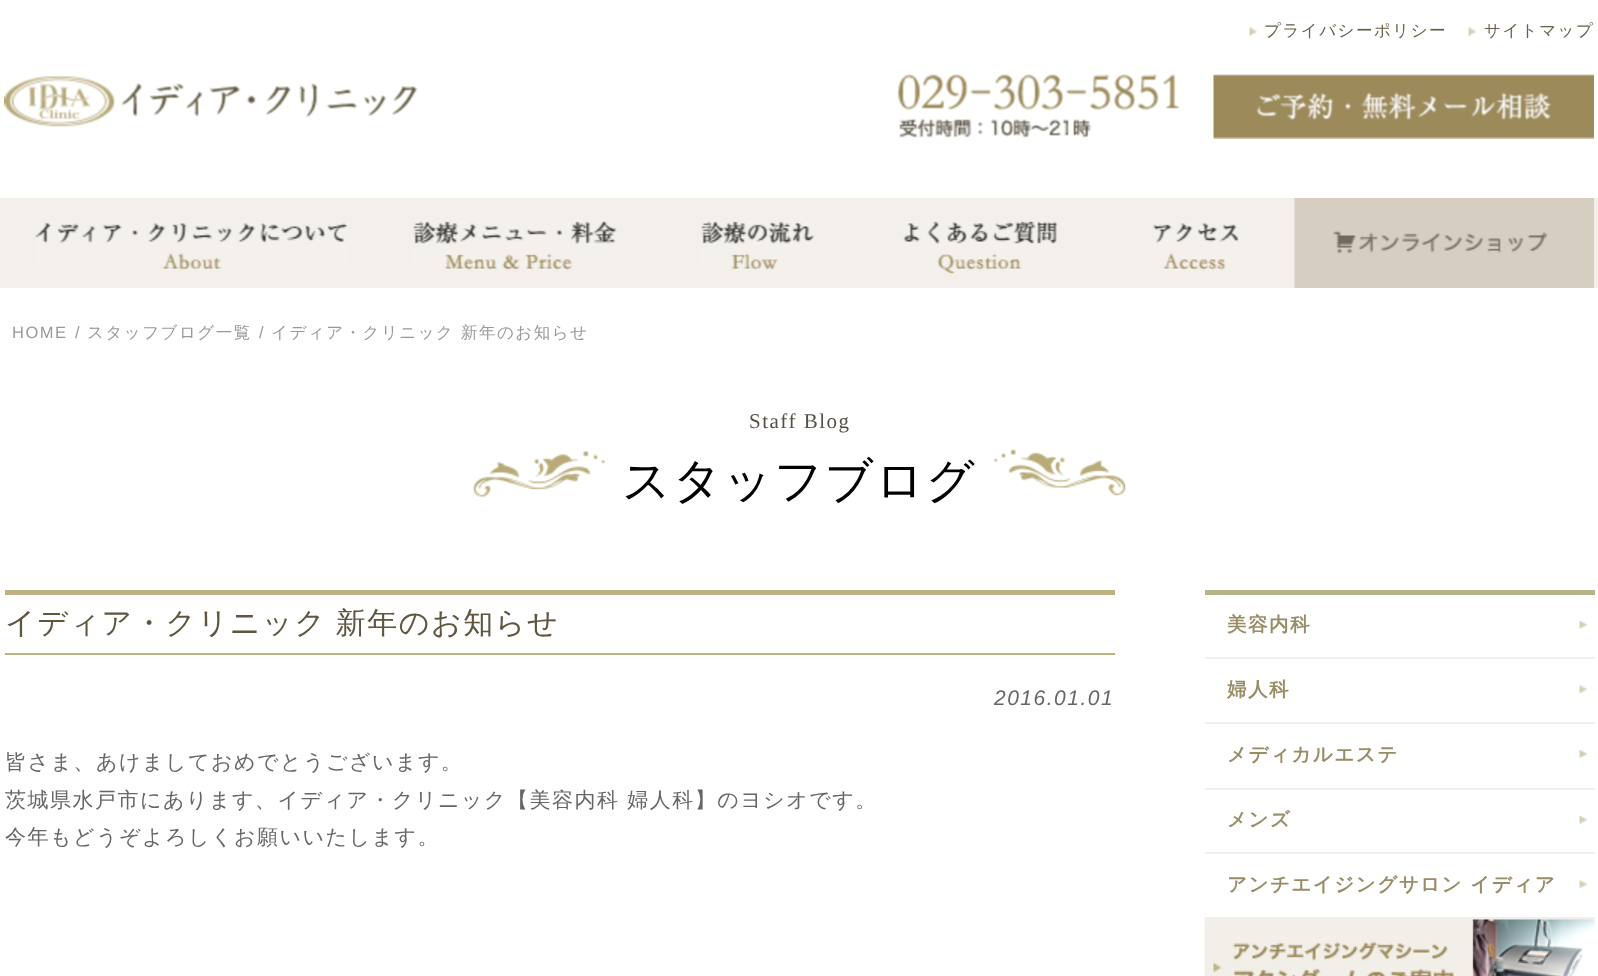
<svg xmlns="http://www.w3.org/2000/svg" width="1598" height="976">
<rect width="100%" height="100%" fill="#fff"/>
<image x="1249" y="27" width="8" height="9" href="media/1.png"/>
<text x="1264" y="36" style="font-family:WenQuanYi Zen Hei;font-size:16.5px;font-weight:500;letter-spacing:1.5px;fill:#67604a">プライバシーポリシー</text>
<image x="1468" y="27" width="8" height="9" href="media/1.png"/>
<text x="1484" y="36" style="font-family:WenQuanYi Zen Hei;font-size:16.5px;font-weight:500;letter-spacing:1.5px;fill:#67604a">サイトマップ</text>
<image x="4" y="75" width="414" height="52" href="media/2.png"/>
<image x="897" y="74" width="283" height="64" href="media/3.png"/>
<image x="1213" y="74" width="381" height="65" href="media/4.png"/>
<rect y="198" width="1598" height="90" fill="#f3f0eb"/>
<image x="35" y="222" width="313" height="48" href="media/5.png"/>
<image x="413" y="221" width="204" height="50" href="media/6.png"/>
<image x="701" y="221" width="114" height="49" href="media/7.png"/>
<image x="903" y="221" width="155" height="53" href="media/8.png"/>
<image x="1153" y="223" width="86" height="48" href="media/9.png"/>
<image x="1294" y="198" width="300" height="90" href="media/10.png"/>
<text x="12" y="338" style="font-family:Liberation Sans;font-size:16.5px;letter-spacing:1.5px;fill:#999">HOME</text>
<text x="75" y="338" style="font-family:Liberation Sans;font-size:16.5px;letter-spacing:1.5px;fill:#999">/</text>
<text x="87" y="338" style="font-family:WenQuanYi Zen Hei;font-size:16.5px;font-weight:500;letter-spacing:1.5px;fill:#999">スタッフブログ一覧</text>
<text x="259" y="338" style="font-family:Liberation Sans;font-size:16.5px;letter-spacing:1.5px;fill:#999">/</text>
<text x="271" y="338" style="font-family:WenQuanYi Zen Hei;font-size:16.5px;font-weight:500;letter-spacing:1.5px;fill:#999">イディア・クリニック 新年のお知らせ</text>
<text x="749" y="428" style="font-family:Liberation Serif;font-size:21px;letter-spacing:1.5px;fill:#545043">Staff Blog</text>
<image x="472" y="451" width="133" height="46" href="media/11.png"/>
<text x="622" y="497" style="font-family:WenQuanYi Zen Hei;font-size:48px;font-weight:500;letter-spacing:1.5px;fill:#000">スタッフブログ</text>
<image x="994" y="449" width="133" height="47" href="media/12.png"/>
<rect x="5" y="590" width="1110" height="5" fill="#beb284"/>
<rect x="5" y="653" width="1110" height="2" fill="#beb284"/>
<text x="5" y="633" word-spacing="-1" style="font-family:WenQuanYi Zen Hei;font-size:30px;font-weight:500;letter-spacing:1.5px;fill:#5e563f">イディア・クリニック 新年のお知らせ</text>
<text x="994" y="705" style="font-family:Liberation Sans;font-size:21px;font-style:italic;letter-spacing:1.5px;fill:#666">2016.01.01</text>
<text x="5" y="769" style="font-family:WenQuanYi Zen Hei;font-size:21px;font-weight:500;letter-spacing:1.5px;fill:#666">皆さま、あけましておめでとうございます。</text>
<text x="5" y="807" style="font-family:WenQuanYi Zen Hei;font-size:21px;font-weight:500;letter-spacing:1.5px;fill:#666">茨城県水戸市にあります、イディア・クリニック【美容内科 婦人科】のヨシオです。</text>
<text x="5" y="844" style="font-family:WenQuanYi Zen Hei;font-size:21px;font-weight:500;letter-spacing:1.5px;fill:#666">今年もどうぞよろしくお願いいたします。</text>
<rect x="1205" y="590" width="390" height="5" fill="#b7b388"/>
<image x="1579" y="621" width="8" height="8" href="media/13.png"/>
<rect x="1205" y="657" width="390" height="2" fill="#efefed"/>
<text x="1227" y="631" style="font-family:WenQuanYi Zen Hei;font-size:19.5px;font-weight:bold;letter-spacing:1.5px;fill:#988d66">美容内科</text>
<image x="1579" y="685" width="9" height="9" href="media/14.png"/>
<rect x="1205" y="722" width="390" height="2" fill="#efefed"/>
<text x="1227" y="696" style="font-family:WenQuanYi Zen Hei;font-size:19.5px;font-weight:bold;letter-spacing:1.5px;fill:#988d66">婦人科</text>
<image x="1579" y="750" width="9" height="8" href="media/15.png"/>
<rect x="1205" y="788" width="390" height="2" fill="#efefed"/>
<text x="1227" y="761" style="font-family:WenQuanYi Zen Hei;font-size:19.5px;font-weight:bold;letter-spacing:1.5px;fill:#988d66">メディカルエステ</text>
<image x="1579" y="816" width="8" height="8" href="media/13.png"/>
<rect x="1205" y="852" width="390" height="2" fill="#efefed"/>
<text x="1227" y="826" style="font-family:WenQuanYi Zen Hei;font-size:19.5px;font-weight:bold;letter-spacing:1.5px;fill:#988d66">メンズ</text>
<image x="1579" y="880" width="9" height="9" href="media/16.png"/>
<rect x="1205" y="917" width="390" height="2" fill="#efefed"/>
<text x="1227" y="891" style="font-family:WenQuanYi Zen Hei;font-size:19.5px;font-weight:bold;letter-spacing:1.5px;fill:#988d66">アンチエイジングサロン イディア</text>
<image x="1204" y="918" width="391" height="58" href="media/17.png"/>
</svg>
